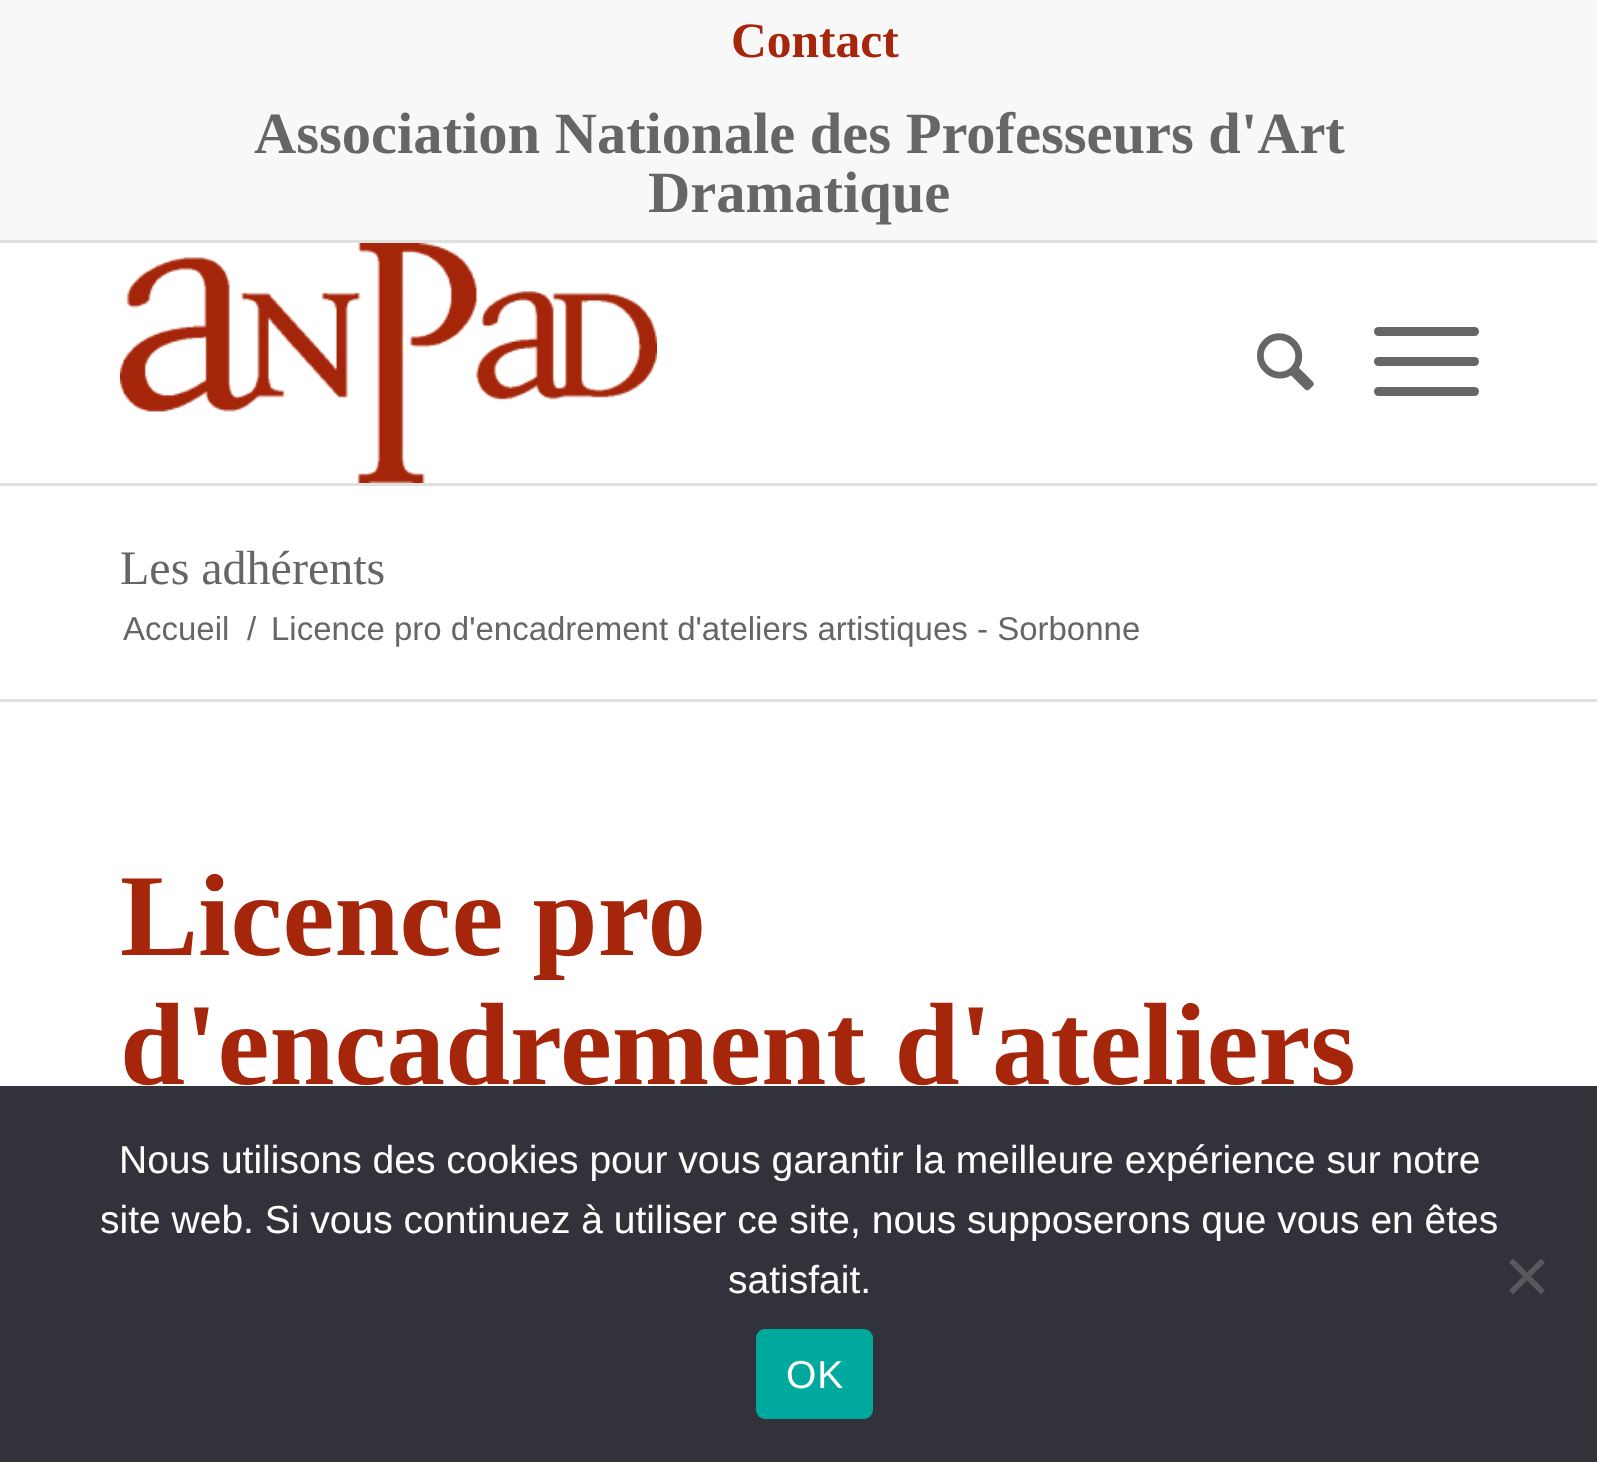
<svg xmlns="http://www.w3.org/2000/svg" width="1597" height="1462">
<rect width="100%" height="100%" fill="#fff"/>
<rect width="1597" height="240" fill="#f8f8f8"/>
<rect y="240" width="1597" height="3" fill="#e1e1e1"/>
<text x="731" y="57" style="font-family:Liberation Serif;font-size:49.5px;font-weight:bold;fill:#a5260a">Contact</text>
<text x="254" y="153" style="font-family:Liberation Serif;font-size:58.5px;font-weight:bold;fill:#666">Association Nationale des Professeurs d'Art</text>
<text x="648" y="212" style="font-family:Liberation Serif;font-size:58.5px;font-weight:bold;fill:#666">Dramatique</text>
<rect y="483" width="1597" height="3" fill="#e1e1e1"/>
<image x="120" y="243" width="537" height="240" href="media/1.png"/>
<image x="1257" y="333" width="57" height="58" href="media/2.png"/>
<rect x="1374" y="357" width="105" height="9" rx="4.5" fill="#666"/>
<rect x="1374" y="327" width="105" height="9" rx="4.5" fill="#666"/>
<rect x="1374" y="387" width="105" height="9" rx="4.5" fill="#666"/>
<text x="120" y="584" style="font-family:Liberation Serif;font-size:48px;fill:#666">Les adhérents</text>
<text x="123" y="640" style="font-family:Liberation Sans;font-size:33px;fill:#666">Accueil</text>
<text x="247" y="640" style="font-family:Liberation Sans;font-size:33px;fill:#666">/</text>
<text x="271" y="640" style="font-family:Liberation Sans;font-size:33px;fill:#666">Licence pro d'encadrement d'ateliers artistiques - Sorbonne</text>
<rect y="699" width="1597" height="3" fill="#e1e1e1"/>
<text x="120" y="955" style="font-family:Liberation Serif;font-size:117px;font-weight:bold;fill:#a5260a">Licence pro</text>
<text x="120" y="1084" style="font-family:Liberation Serif;font-size:117px;font-weight:bold;fill:#a5260a">d'encadrement d'ateliers</text>
<rect y="1086" width="1597" height="376" fill="#32323a"/>
<text x="119" y="1173" style="font-family:Liberation Sans;font-size:39px;fill:#fff">Nous utilisons des cookies pour vous garantir la meilleure expérience sur notre</text>
<text x="100" y="1233" style="font-family:Liberation Sans;font-size:39px;fill:#fff">site web. Si vous continuez à utiliser ce site, nous supposerons que vous en êtes</text>
<text x="728" y="1293" style="font-family:Liberation Sans;font-size:39px;fill:#fff">satisfait.</text>
<path d="M1541 1258.5l4 4l-32 32l-4-4z" fill="#59595d"/>
<path d="M1509 1262.5l4-4l32 32l-4 4z" fill="#59595d"/>
<rect x="756" y="1329" width="117" height="90" rx="9" fill="#00a99d"/>
<text x="786" y="1388" style="font-family:Liberation Sans;font-size:39px;letter-spacing:1px;fill:#fff">OK</text>
</svg>
